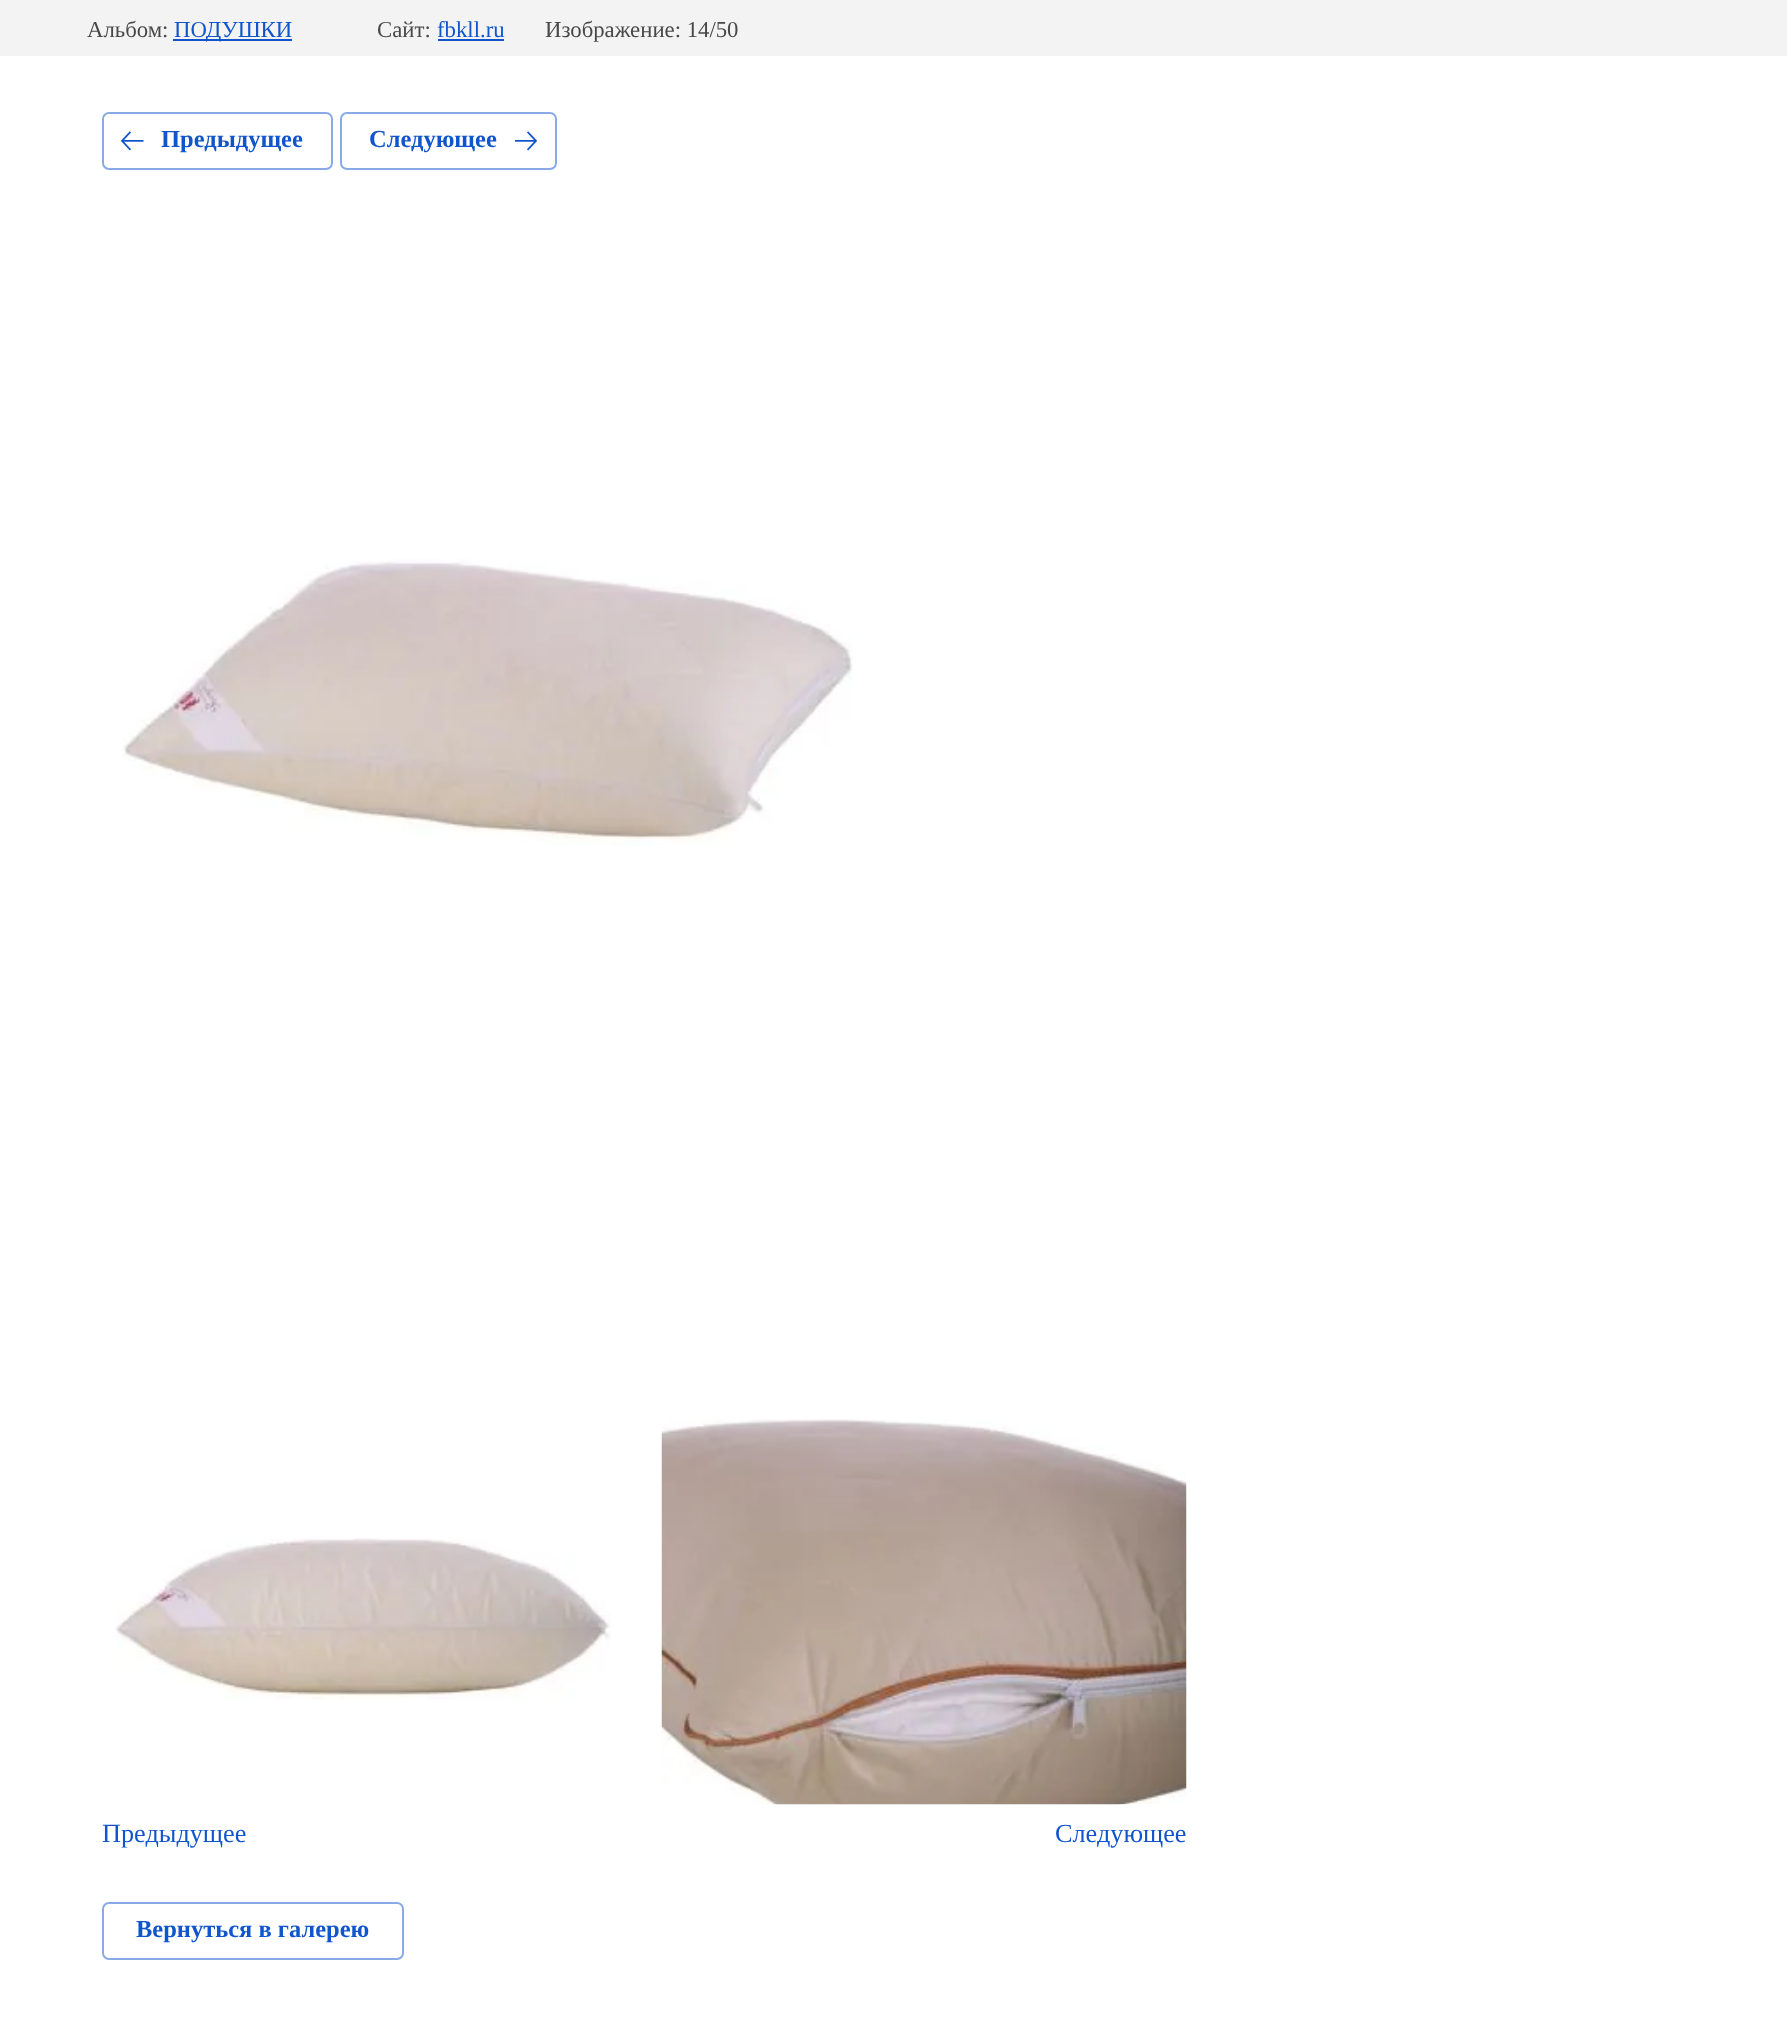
<svg xmlns="http://www.w3.org/2000/svg" width="1787" height="2038">
<rect width="100%" height="100%" fill="#fff"/>
<rect width="1787" height="56" fill="#f3f3f3"/>
<text x="87" y="37" style="font-family:Liberation Serif;font-size:22.75px;fill:#484848">Альбом:</text>
<rect x="173" y="39" width="119" height="2" fill="#15c"/>
<text x="174" y="37" style="font-family:Liberation Serif;font-size:22.75px;fill:#15c">ПОДУШКИ</text>
<text x="377" y="37" style="font-family:Liberation Serif;font-size:22.75px;fill:#484848">Сайт:</text>
<text x="437" y="37" style="font-family:Liberation Serif;font-size:22.75px;fill:#15c">fbkll.ru</text>
<rect x="438" y="39" width="66" height="2" fill="#15c"/>
<text x="545" y="37" style="font-family:Liberation Serif;font-size:22.75px;fill:#484848">Изображение: 14/50</text>
<rect x="103" y="113" width="229" height="56" rx="6" fill="none" stroke="#88aae6" stroke-width="2"/>
<image x="121" y="131" width="23" height="20" href="media/1.png"/>
<text x="161" y="147" style="font-family:Liberation Serif;font-size:24.5px;font-weight:bold;fill:#15c">Предыдущее</text>
<rect x="341" y="113" width="215" height="56" rx="6" fill="none" stroke="#88aae6" stroke-width="2"/>
<text x="369" y="147" style="font-family:Liberation Serif;font-size:24.5px;font-weight:bold;fill:#15c">Следующее</text>
<image x="515" y="131" width="22" height="20" href="media/2.png"/>
<image x="123" y="559" width="730" height="287" href="media/3.png"/>
<image x="115" y="1538" width="496" height="162" href="media/4.png"/>
<text x="102" y="1842" style="font-family:Liberation Serif;font-size:26.25px;fill:#15c">Предыдущее</text>
<image x="661" y="1419" width="526" height="386" href="media/5.png"/>
<text x="1055" y="1842" style="font-family:Liberation Serif;font-size:26.25px;fill:#15c">Следующее</text>
<rect x="103" y="1903" width="300" height="56" rx="6" fill="none" stroke="#88aae6" stroke-width="2"/>
<text x="136" y="1937" style="font-family:Liberation Serif;font-size:24.5px;font-weight:bold;fill:#15c">Вернуться в галерею</text>
</svg>
